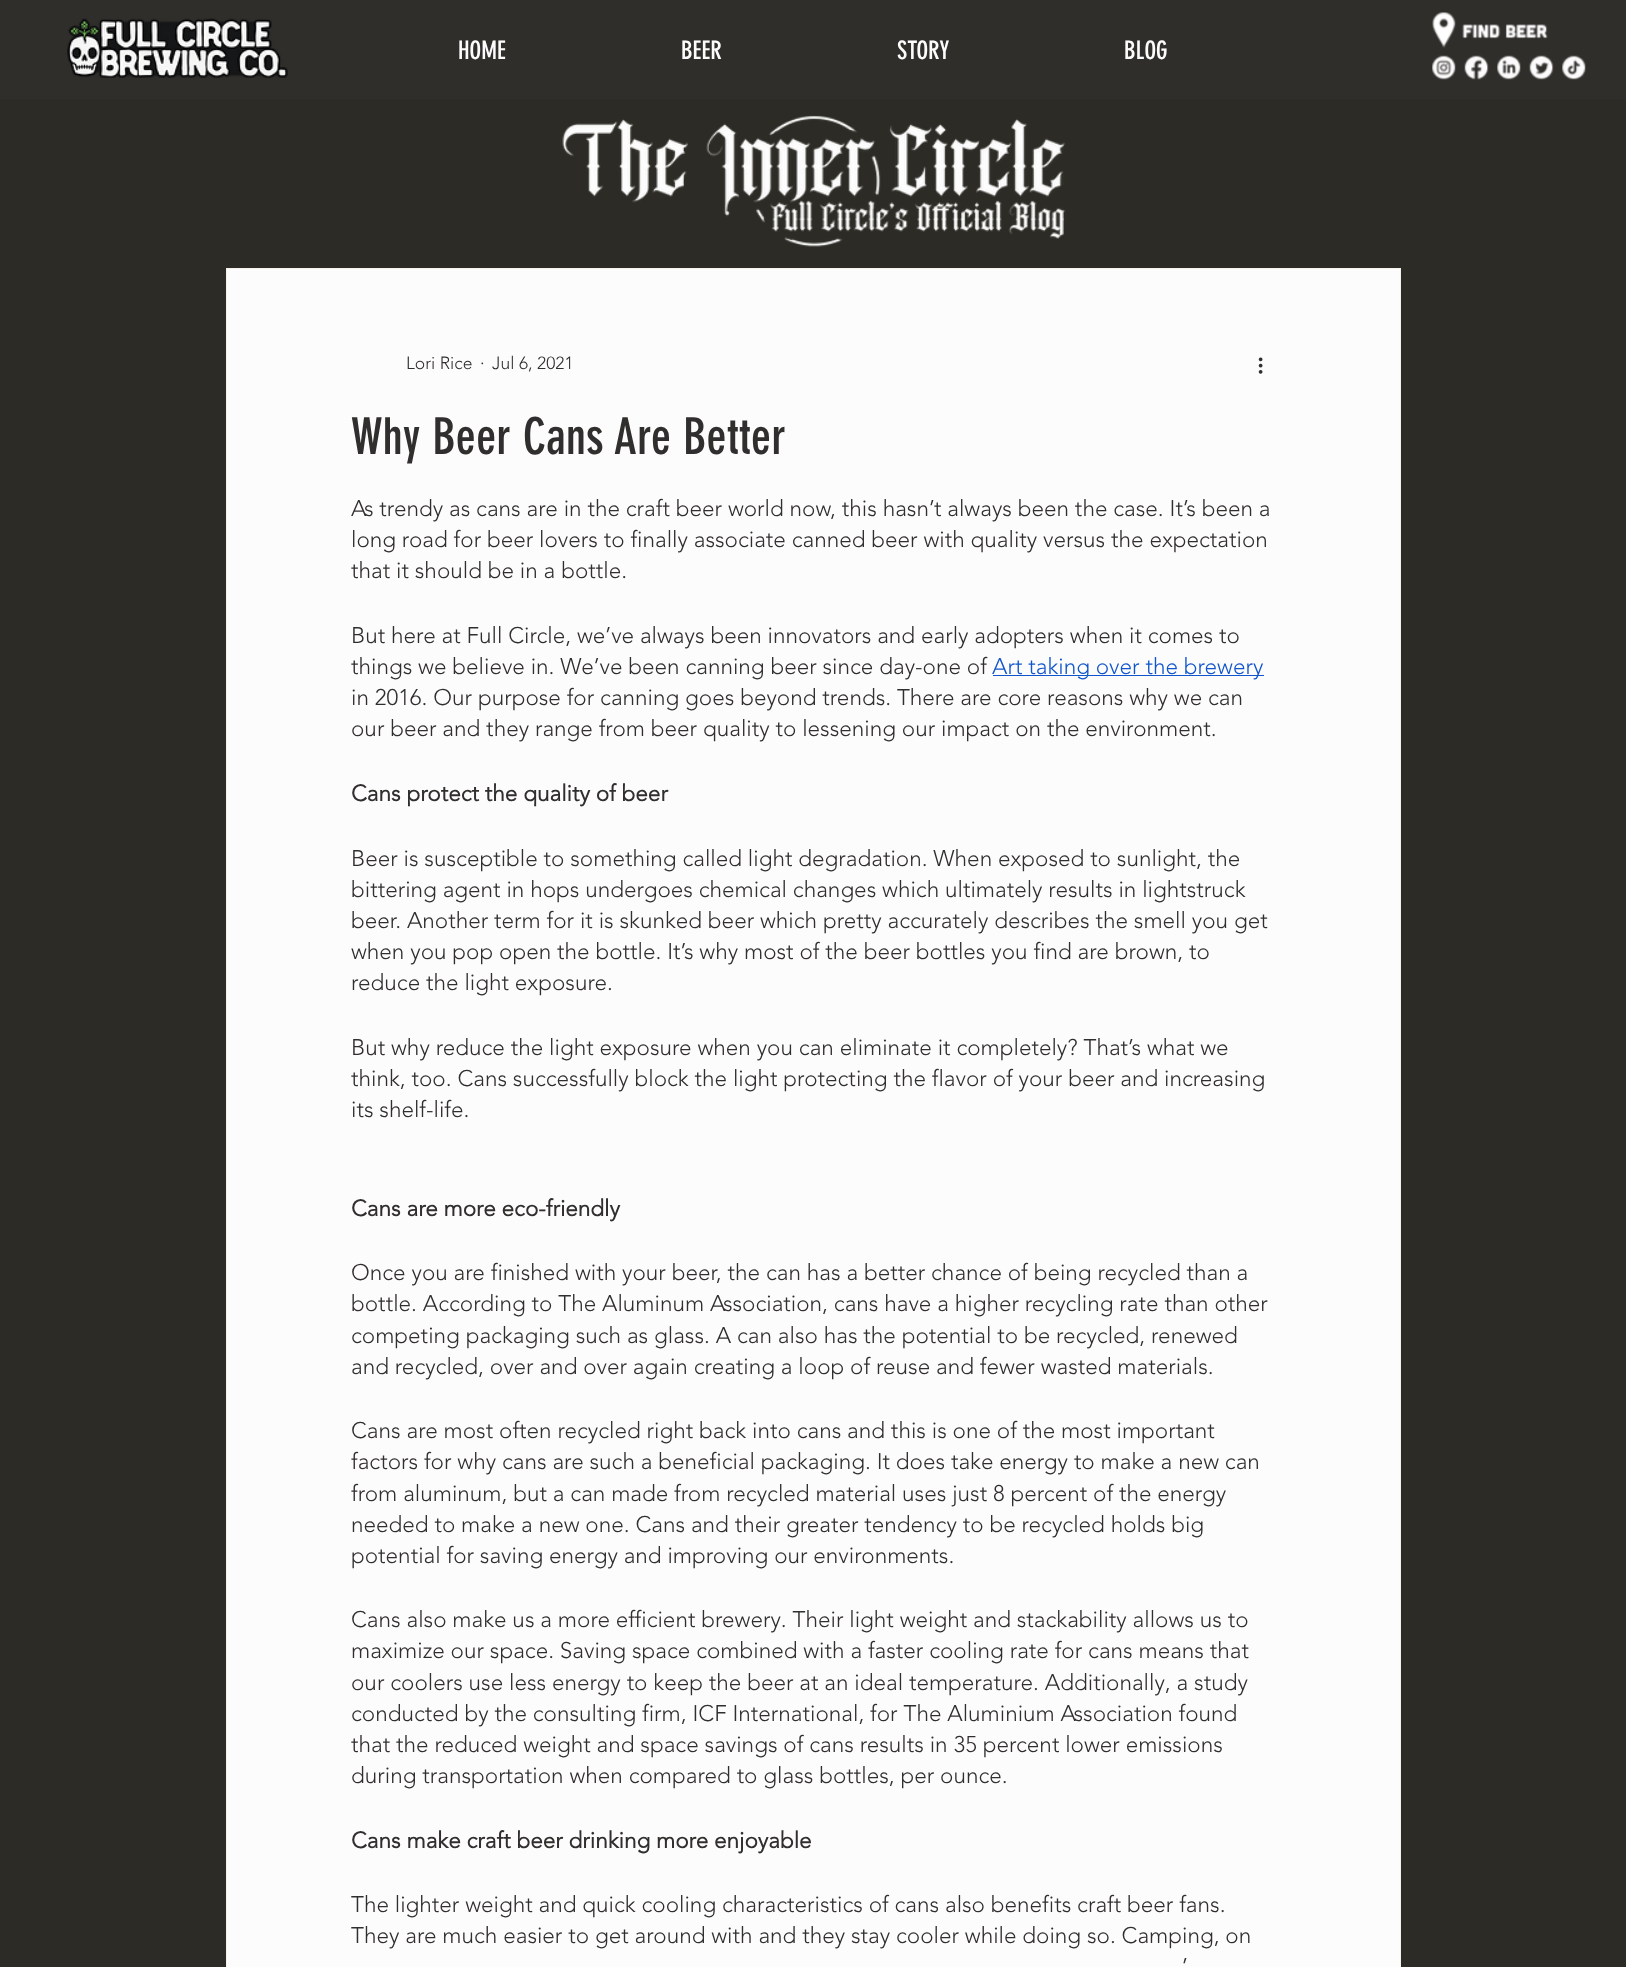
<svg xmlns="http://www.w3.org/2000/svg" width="1626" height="1967">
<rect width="100%" height="100%" fill="#2c2b25"/>
<rect width="1626" height="99" fill="#302e2b"/>
<image x="67" y="18" width="221" height="60" href="media/1.png"/>
<text x="458" y="59" style="font-family:'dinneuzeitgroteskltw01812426';font-size:25px;fill:#fcfcfc">HOME</text>
<text x="681" y="59" style="font-family:'dinneuzeitgroteskltw01812426';font-size:25px;fill:#fcfcfc">BEER</text>
<text x="897" y="59" style="font-family:'dinneuzeitgroteskltw01812426';font-size:25px;fill:#fcfcfc">STORY</text>
<text x="1124" y="59" style="font-family:'dinneuzeitgroteskltw01812426';font-size:25px;fill:#fcfcfc">BLOG</text>
<image x="1432" y="12" width="116" height="36" href="media/2.png"/>
<image x="1432" y="55" width="24" height="25" href="media/3.png"/>
<image x="1464" y="55" width="25" height="25" href="media/4.png"/>
<image x="1497" y="55" width="24" height="25" href="media/5.png"/>
<image x="1529" y="55" width="25" height="25" href="media/6.png"/>
<image x="1562" y="55" width="24" height="25" href="media/7.png"/>
<image x="560" y="115" width="506" height="132" href="media/8.png"/>
<rect x="226.5" y="268.5" width="1174" height="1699" fill="#fcfcfc" stroke="#f7f1eb"/>
<text x="406" y="369" style="font-family:'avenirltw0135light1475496';font-size:17.5px;font-weight:300;fill:#312f2e">Lori Rice</text>
<text x="480" y="369" style="font-family:'avenirltw0135light1475496';font-size:17.5px;font-weight:300;fill:#312f2e">·</text>
<text x="492" y="369" style="font-family:'avenirltw0135light1475496';font-size:17.5px;font-weight:300;fill:#312f2e">Jul 6, 2021</text>
<image x="1258" y="357" width="5" height="17" href="media/9.png"/>
<text x="351" y="454" style="font-family:'dinneuzeitgroteskltw01812426';font-size:50px;fill:#312f2e">Why Beer Cans Are Better</text>
<text x="351" y="516" style="font-family:'avenirltw0135light1475496';font-size:22.5px;font-weight:300;fill:#312f2e">As trendy as cans are in the craft beer world now, this hasn’t always been the case. It’s been a</text>
<text x="351" y="547" style="font-family:'avenirltw0135light1475496';font-size:22.5px;font-weight:300;fill:#312f2e">long road for beer lovers to finally associate canned beer with quality versus the expectation</text>
<text x="351" y="578" style="font-family:'avenirltw0135light1475496';font-size:22.5px;font-weight:300;fill:#312f2e">that it should be in a bottle.</text>
<text x="351" y="643" style="font-family:'avenirltw0135light1475496';font-size:22.5px;font-weight:300;fill:#312f2e">But here at Full Circle, we’ve always been innovators and early adopters when it comes to</text>
<text x="351" y="674" style="font-family:'avenirltw0135light1475496';font-size:22.5px;font-weight:300;fill:#312f2e">things we believe in. We’ve been canning beer since day-one of</text>
<rect x="993" y="675" width="271" height="1" fill="#15c"/>
<text x="992" y="674" style="font-family:'avenirltw0135light1475496';font-size:22.5px;font-weight:300;fill:#15c">Art taking over the brewery</text>
<text x="351" y="705" style="font-family:'avenirltw0135light1475496';font-size:22.5px;font-weight:300;fill:#312f2e">in 2016. Our purpose for canning goes beyond trends. There are core reasons why we can</text>
<text x="351" y="736" style="font-family:'avenirltw0135light1475496';font-size:22.5px;font-weight:300;fill:#312f2e">our beer and they range from beer quality to lessening our impact on the environment.</text>
<text x="351" y="801" style="font-family:'avenirltw0135light1475496';font-size:22.5px;font-weight:bold;fill:#312f2e">Cans protect the quality of beer</text>
<text x="351" y="866" style="font-family:'avenirltw0135light1475496';font-size:22.5px;font-weight:300;fill:#312f2e">Beer is susceptible to something called light degradation. When exposed to sunlight, the</text>
<text x="351" y="897" style="font-family:'avenirltw0135light1475496';font-size:22.5px;font-weight:300;fill:#312f2e">bittering agent in hops undergoes chemical changes which ultimately results in lightstruck</text>
<text x="351" y="928" style="font-family:'avenirltw0135light1475496';font-size:22.5px;font-weight:300;fill:#312f2e">beer. Another term for it is skunked beer which pretty accurately describes the smell you get</text>
<text x="351" y="959" style="font-family:'avenirltw0135light1475496';font-size:22.5px;font-weight:300;fill:#312f2e">when you pop open the bottle. It’s why most of the beer bottles you find are brown, to</text>
<text x="351" y="990" style="font-family:'avenirltw0135light1475496';font-size:22.5px;font-weight:300;fill:#312f2e">reduce the light exposure.</text>
<text x="351" y="1055" style="font-family:'avenirltw0135light1475496';font-size:22.5px;font-weight:300;fill:#312f2e">But why reduce the light exposure when you can eliminate it completely? That’s what we</text>
<text x="351" y="1086" style="font-family:'avenirltw0135light1475496';font-size:22.5px;font-weight:300;fill:#312f2e">think, too. Cans successfully block the light protecting the flavor of your beer and increasing</text>
<text x="351" y="1117" style="font-family:'avenirltw0135light1475496';font-size:22.5px;font-weight:300;fill:#312f2e">its shelf-life.</text>
<text x="351" y="1216" style="font-family:'avenirltw0135light1475496';font-size:22.5px;font-weight:bold;fill:#312f2e">Cans are more eco-friendly</text>
<text x="351" y="1280" style="font-family:'avenirltw0135light1475496';font-size:22.5px;font-weight:300;fill:#312f2e">Once you are finished with your beer, the can has a better chance of being recycled than a</text>
<text x="351" y="1311" style="font-family:'avenirltw0135light1475496';font-size:22.5px;font-weight:300;fill:#312f2e">bottle. According to The Aluminum Association, cans have a higher recycling rate than other</text>
<text x="351" y="1343" style="font-family:'avenirltw0135light1475496';font-size:22.5px;font-weight:300;fill:#312f2e">competing packaging such as glass. A can also has the potential to be recycled, renewed</text>
<text x="351" y="1374" style="font-family:'avenirltw0135light1475496';font-size:22.5px;font-weight:300;fill:#312f2e">and recycled, over and over again creating a loop of reuse and fewer wasted materials.</text>
<text x="351" y="1438" style="font-family:'avenirltw0135light1475496';font-size:22.5px;font-weight:300;fill:#312f2e">Cans are most often recycled right back into cans and this is one of the most important</text>
<text x="351" y="1469" style="font-family:'avenirltw0135light1475496';font-size:22.5px;font-weight:300;fill:#312f2e">factors for why cans are such a beneficial packaging. It does take energy to make a new can</text>
<text x="351" y="1501" style="font-family:'avenirltw0135light1475496';font-size:22.5px;font-weight:300;fill:#312f2e">from aluminum, but a can made from recycled material uses just 8 percent of the energy</text>
<text x="351" y="1532" style="font-family:'avenirltw0135light1475496';font-size:22.5px;font-weight:300;fill:#312f2e">needed to make a new one. Cans and their greater tendency to be recycled holds big</text>
<text x="351" y="1563" style="font-family:'avenirltw0135light1475496';font-size:22.5px;font-weight:300;fill:#312f2e">potential for saving energy and improving our environments.</text>
<text x="351" y="1627" style="font-family:'avenirltw0135light1475496';font-size:22.5px;font-weight:300;fill:#312f2e">Cans also make us a more efficient brewery. Their light weight and stackability allows us to</text>
<text x="351" y="1658" style="font-family:'avenirltw0135light1475496';font-size:22.5px;font-weight:300;fill:#312f2e">maximize our space. Saving space combined with a faster cooling rate for cans means that</text>
<text x="351" y="1690" style="font-family:'avenirltw0135light1475496';font-size:22.5px;font-weight:300;fill:#312f2e">our coolers use less energy to keep the beer at an ideal temperature. Additionally, a study</text>
<text x="351" y="1721" style="font-family:'avenirltw0135light1475496';font-size:22.5px;font-weight:300;fill:#312f2e">conducted by the consulting firm, ICF International, for The Aluminium Association found</text>
<text x="351" y="1752" style="font-family:'avenirltw0135light1475496';font-size:22.5px;font-weight:300;fill:#312f2e">that the reduced weight and space savings of cans results in 35 percent lower emissions</text>
<text x="351" y="1783" style="font-family:'avenirltw0135light1475496';font-size:22.5px;font-weight:300;fill:#312f2e">during transportation when compared to glass bottles, per ounce.</text>
<text x="351" y="1848" style="font-family:'avenirltw0135light1475496';font-size:22.5px;font-weight:bold;fill:#312f2e">Cans make craft beer drinking more enjoyable</text>
<text x="351" y="1912" style="font-family:'avenirltw0135light1475496';font-size:22.5px;font-weight:300;fill:#312f2e">The lighter weight and quick cooling characteristics of cans also benefits craft beer fans.</text>
<text x="351" y="1943" style="font-family:'avenirltw0135light1475496';font-size:22.5px;font-weight:300;fill:#312f2e">They are much easier to get around with and they stay cooler while doing so. Camping, on</text>
<text x="1182" y="1974" style="font-family:'avenirltw0135light1475496';font-size:22.5px;font-weight:300;fill:#312f2e">’</text>
</svg>
